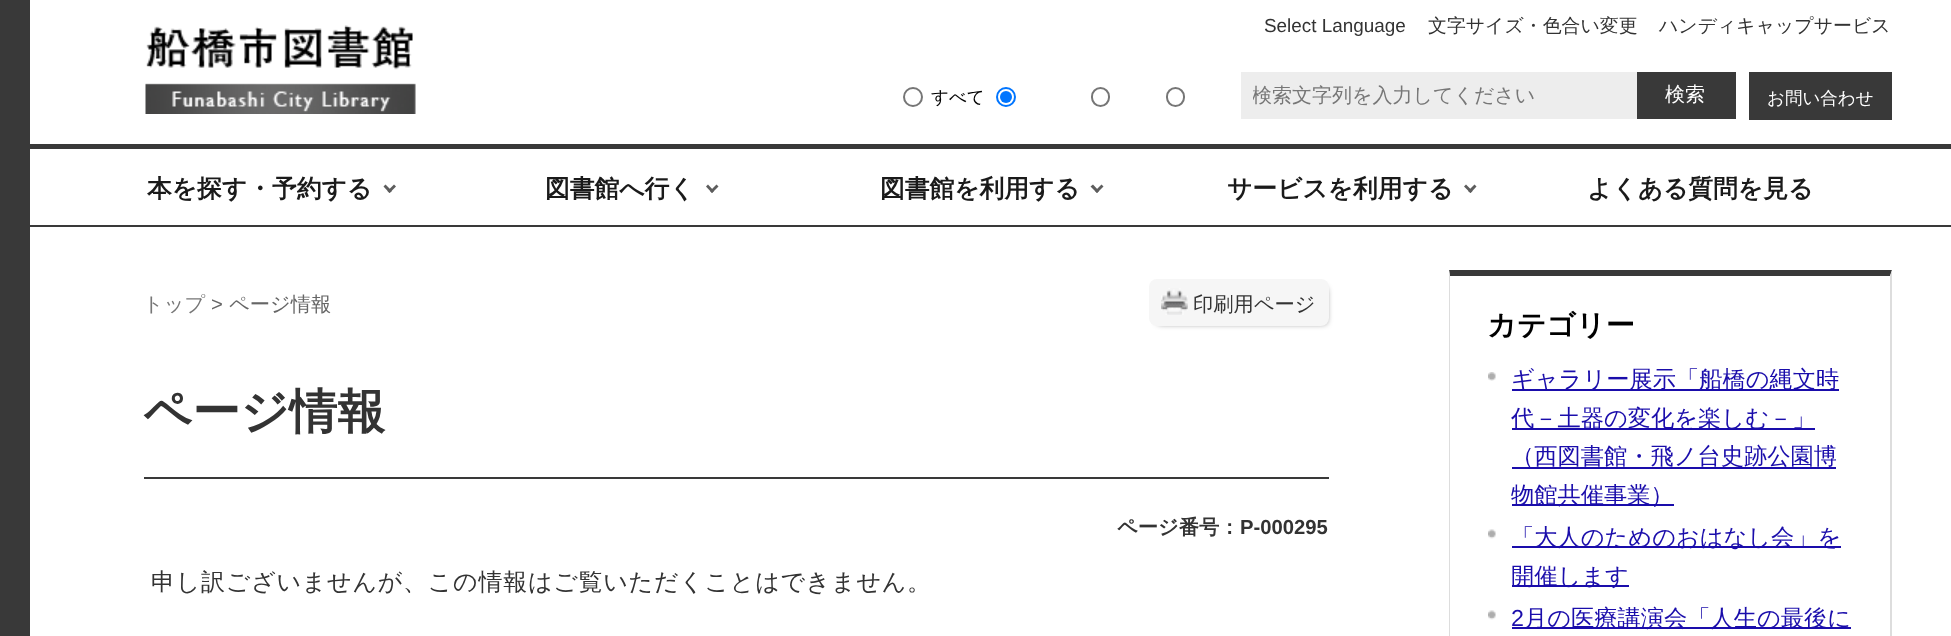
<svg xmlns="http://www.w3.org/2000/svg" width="1951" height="636">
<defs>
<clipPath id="clip1"><rect x="1253" y="83" width="384" height="27"/></clipPath>
</defs>
<rect width="100%" height="100%" fill="#fff"/>
<rect x="30" y="225" width="1921" height="2" fill="#393939"/>
<text x="1264" y="32" style="font-family:Liberation Sans;font-size:18.9px;fill:#333">Select Language</text>
<text x="1428" y="32" style="font-family:WenQuanYi Zen Hei;font-size:18.9px;font-weight:500;fill:#333">文字サイズ・色合い変更</text>
<text x="1659" y="32" style="font-family:WenQuanYi Zen Hei;font-size:18.9px;font-weight:500;fill:#333">ハンディキャップサービス</text>
<circle cx="913" cy="97" r="9" fill="none" stroke="#767676" stroke-width="2"/>
<text x="931" y="103" style="font-family:WenQuanYi Zen Hei;font-size:17.5px;font-weight:500;fill:#000">すべて</text>
<circle cx="1006" cy="97" r="9" fill="none" stroke="#0075ff" stroke-width="2"/>
<circle cx="1006" cy="97" r="6" fill="#0075ff"/>
<rect x="1092" y="88" width="17" height="18" rx="8.5" fill="none" stroke="#767676" stroke-width="2"/>
<rect x="1167" y="88" width="17" height="18" rx="8.5" fill="none" stroke="#767676" stroke-width="2"/>
<rect x="1241" y="72" width="396" height="47" fill="#ededed"/>
<g clip-path="url(#clip1)">
<text x="1252" y="102" style="font-family:WenQuanYi Zen Hei;font-size:20px;font-weight:500;fill:#777">検索文字列を入力してください</text>
</g>
<rect x="1637" y="72" width="99" height="47" fill="#393939"/>
<text x="1665" y="101" style="font-family:WenQuanYi Zen Hei;font-size:20px;font-weight:500;fill:#fff">検索</text>
<image x="145" y="25" width="271" height="89" href="media/1.png"/>
<rect x="1749" y="72" width="143" height="48" fill="#393939"/>
<text x="1767" y="104" style="font-family:WenQuanYi Zen Hei;font-size:17.5px;font-weight:500;fill:#fff">お問い合わせ</text>
<rect x="30" y="144" width="1921" height="5" fill="#393939"/>
<text x="147" y="197" style="font-family:WenQuanYi Zen Hei;font-size:24.75px;font-weight:bold;fill:#1a1a1a">本を探す・予約する</text>
<path d="M389.5 193l-6-6.5l2-2l6.5 6.5z" fill="#5d5d5d"/>
<path d="M389.5 193l-2-2l6.5-6.5l2 2z" fill="#5d5d5d"/>
<text x="545" y="197" style="font-family:WenQuanYi Zen Hei;font-size:24.75px;font-weight:bold;fill:#1a1a1a">図書館へ行く</text>
<path d="M712 193l-6-6.5l2-2l6 6.5z" fill="#5d5d5d"/>
<path d="M712 193l-2-2l6.5-6.5l2 2z" fill="#5d5d5d"/>
<text x="880" y="197" style="font-family:WenQuanYi Zen Hei;font-size:24.75px;font-weight:bold;fill:#1a1a1a">図書館を利用する</text>
<path d="M1097 193l-6.5-6.5l2.5-2l6 6.5z" fill="#5d5d5d"/>
<path d="M1097 193l-2-2l6.5-6.5l2 2z" fill="#5d5d5d"/>
<text x="1227" y="197" style="font-family:WenQuanYi Zen Hei;font-size:24.75px;font-weight:bold;fill:#1a1a1a">サービスを利用する</text>
<path d="M1470.5 193l-6.5-6.5l2-2l6.5 6.5z" fill="#5d5d5d"/>
<path d="M1470.5 193l-2.5-2l6.5-6.5l2 2z" fill="#5d5d5d"/>
<text x="1587" y="197" style="font-family:WenQuanYi Zen Hei;font-size:24.75px;font-weight:bold;fill:#1a1a1a">よくある質問を見る</text>
<rect width="30" height="636" fill="#393939"/>
<text x="143" y="311" style="font-family:WenQuanYi Zen Hei;font-size:20.25px;font-weight:500;fill:#777">トップ</text>
<text x="211" y="311" style="font-family:Liberation Sans;font-size:20.25px;fill:#666">&gt;</text>
<text x="229" y="311" style="font-family:WenQuanYi Zen Hei;font-size:20.25px;font-weight:500;fill:#666">ページ情報</text>
<rect x="1158" y="288" width="168" height="35" rx="1.5" fill="#000000bf" filter="blur(3px)"/>
<rect x="1149" y="279" width="180" height="47" rx="8" fill="#f6f6f6"/>
<image x="1161" y="288" width="27" height="27" href="media/2.png"/>
<text x="1193" y="311" style="font-family:WenQuanYi Zen Hei;font-size:20.25px;font-weight:500;fill:#333">印刷用ページ</text>
<rect x="144" y="477" width="1185" height="2" fill="#393939"/>
<text x="143" y="428" style="font-family:WenQuanYi Zen Hei;font-size:48px;font-weight:bold;fill:#333">ページ情報</text>
<text x="1117" y="534" style="font-family:WenQuanYi Zen Hei;font-size:20.25px;font-weight:bold;fill:#333">ページ番号：</text>
<text x="1240" y="534" style="font-family:Liberation Sans;font-size:20.25px;font-weight:bold;fill:#333">P-000295</text>
<text x="151" y="590" style="font-family:WenQuanYi Zen Hei;font-size:24px;font-weight:500;letter-spacing:0.75px;fill:#333">申し訳ございませんが、この情報はご覧いただくことはできません。</text>
<path d="M1449 270h443l-2 6h-440z" fill="#393939"/>
<path d="M1892 270v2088l-2-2v-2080z" fill="#ddd"/>
<path d="M1449 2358v-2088l1 6v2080z" fill="#ddd"/>
<text x="1487" y="335" style="font-family:WenQuanYi Zen Hei;font-size:29px;font-weight:bold;fill:#000">カテゴリー</text>
<image x="1488" y="372" width="8" height="9" href="media/3.png"/>
<rect x="1512" y="389" width="327" height="2" fill="#1a0dab"/>
<text x="1511" y="387" style="font-family:WenQuanYi Zen Hei;font-size:23.25px;font-weight:500;fill:#1a0dab">ギャラリー展示「船橋の縄文時</text>
<rect x="1512" y="428" width="303" height="2" fill="#1a0dab"/>
<text x="1511" y="426" style="font-family:WenQuanYi Zen Hei;font-size:23.25px;font-weight:500;fill:#1a0dab">代－土器の変化を楽しむ－」</text>
<rect x="1512" y="467" width="324" height="2" fill="#1a0dab"/>
<text x="1511" y="464" style="font-family:WenQuanYi Zen Hei;font-size:23.25px;font-weight:500;fill:#1a0dab">（西図書館・飛ノ台史跡公園博</text>
<rect x="1512" y="504" width="162" height="2" fill="#1a0dab"/>
<text x="1511" y="503" style="font-family:WenQuanYi Zen Hei;font-size:23.25px;font-weight:500;fill:#1a0dab">物館共催事業）</text>
<image x="1488" y="529" width="8" height="10" href="media/4.png"/>
<rect x="1512" y="546" width="329" height="2" fill="#1a0dab"/>
<text x="1511" y="545" style="font-family:WenQuanYi Zen Hei;font-size:23.25px;font-weight:500;fill:#1a0dab">「大人のためのおはなし会」を</text>
<rect x="1512" y="585" width="117" height="2" fill="#1a0dab"/>
<text x="1511" y="584" style="font-family:WenQuanYi Zen Hei;font-size:23.25px;font-weight:500;fill:#1a0dab">開催します</text>
<image x="1488" y="610" width="8" height="10" href="media/4.png"/>
<text x="1511" y="626" style="font-family:Liberation Sans;font-size:23.25px;fill:#1a0dab">2</text>
<rect x="1512" y="627" width="339" height="2" fill="#1a0dab"/>
<text x="1524" y="626" style="font-family:WenQuanYi Zen Hei;font-size:23.25px;font-weight:500;fill:#1a0dab">月の医療講演会「人生の最後に</text>
</svg>
